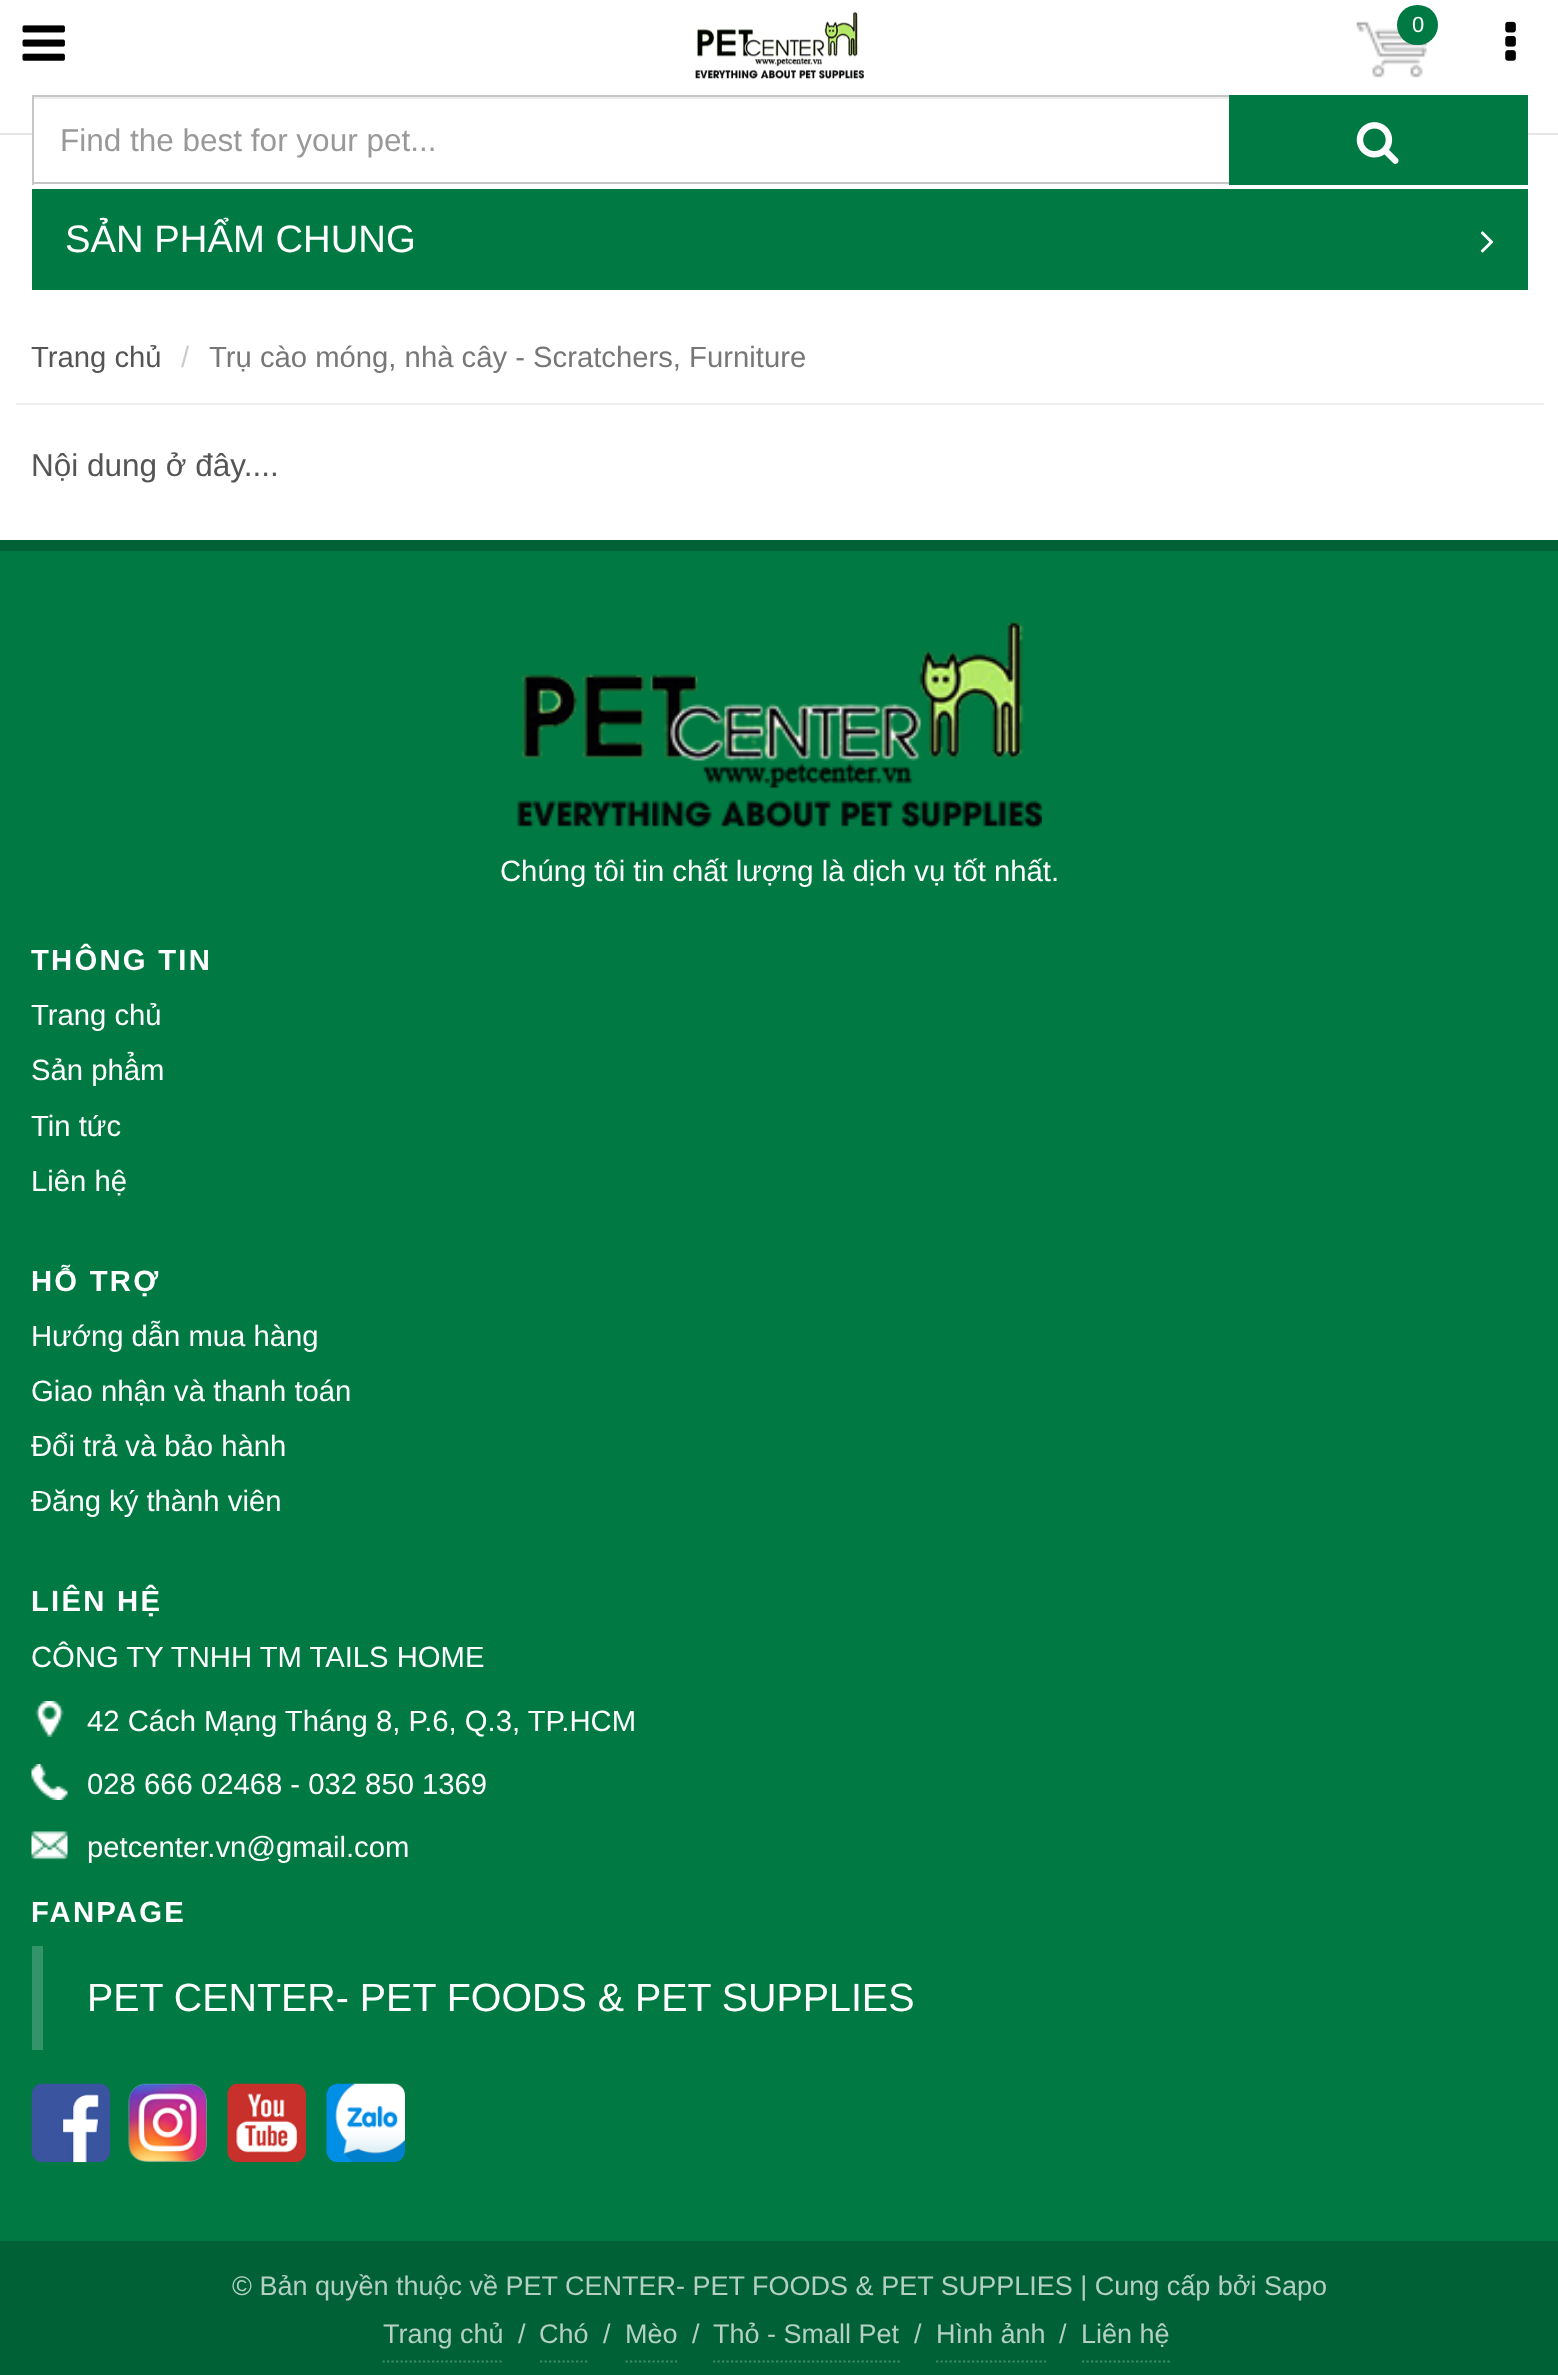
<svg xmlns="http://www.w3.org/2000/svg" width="1558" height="2375">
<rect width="100%" height="100%" fill="#fff"/>
<rect y="133" width="1558" height="2" fill="#e6e4e4"/>
<image x="695" y="11" width="169" height="69" href="media/1.png"/>
<image x="1356" y="21" width="73" height="57" href="media/2.png"/>
<rect x="1397" y="5" width="41" height="40" rx="20" fill="#007943"/>
<text x="1412" y="32" style="font-family:Liberation Sans;font-size:22px;fill:#fff">0</text>
<rect x="34" y="133" width="1195" height="2" fill="#fff"/>
<rect x="34" y="97" width="1195" height="2" fill="#ececec"/>
<rect x="32" y="95" width="1197" height="2" fill="#c6c6c6"/>
<rect x="32" y="182" width="1197" height="2" fill="#c6c6c6"/>
<rect x="32" y="95" width="2" height="90" fill="#c6c6c6"/>
<text x="60" y="151" style="font-family:Liberation Sans;font-size:31.5px;fill:#999">Find the best for your pet...</text>
<rect x="1229" y="95" width="299" height="90" fill="#007943"/>
<image x="1356" y="122" width="43" height="42" href="media/3.png"/>
<image x="1505" y="21" width="11" height="40" href="media/4.png"/>
<rect x="32" y="189" width="1496" height="101" fill="#007943"/>
<text x="65" y="252" style="font-family:Liberation Sans;font-size:38.25px;fill:#fff">SẢN PHẨM CHUNG</text>
<image x="1480" y="231" width="14" height="22" href="media/5.png"/>
<rect x="16" y="403" width="1528" height="2" fill="#eee"/>
<text x="31" y="367" style="font-family:Liberation Sans;font-size:29.25px;fill:#555">Trang chủ</text>
<text x="181" y="367" style="font-family:Liberation Sans;font-size:29.25px;fill:#ccc">/</text>
<text x="209" y="367" style="font-family:Liberation Sans;font-size:29.25px;fill:#777">Trụ cào móng, nhà cây - Scratchers, Furniture</text>
<text x="31" y="476" style="font-family:Liberation Sans;font-size:31.5px;fill:#555">Nội dung ở đây....</text>
<rect y="551" width="1558" height="1690" fill="#007943"/>
<rect y="540" width="1558" height="11" fill="#006136"/>
<image x="517" y="620" width="525" height="208" href="media/6.png"/>
<text x="500" y="881" style="font-family:Liberation Sans;font-size:29.25px;fill:#fff">Chúng tôi tin chất lượng là dịch vụ tốt nhất.</text>
<text x="31" y="970" style="font-family:Liberation Sans;font-size:29.25px;font-weight:bold;letter-spacing:2.25px;fill:#fff">THÔNG TIN</text>
<text x="31" y="1025" style="font-family:Liberation Sans;font-size:29.25px;fill:#fff">Trang chủ</text>
<text x="31" y="1080" style="font-family:Liberation Sans;font-size:29.25px;fill:#fff">Sản phẩm</text>
<text x="31" y="1136" style="font-family:Liberation Sans;font-size:29.25px;fill:#fff">Tin tức</text>
<text x="31" y="1191" style="font-family:Liberation Sans;font-size:29.25px;fill:#fff">Liên hệ</text>
<text x="31" y="1291" style="font-family:Liberation Sans;font-size:29.25px;font-weight:bold;letter-spacing:2.25px;fill:#fff">HỖ TRỢ</text>
<text x="31" y="1346" style="font-family:Liberation Sans;font-size:29.25px;fill:#fff">Hướng dẫn mua hàng</text>
<text x="31" y="1401" style="font-family:Liberation Sans;font-size:29.25px;fill:#fff">Giao nhận và thanh toán</text>
<text x="31" y="1456" style="font-family:Liberation Sans;font-size:29.25px;fill:#fff">Đổi trả và bảo hành</text>
<text x="31" y="1511" style="font-family:Liberation Sans;font-size:29.25px;fill:#fff">Đăng ký thành viên</text>
<text x="31" y="1611" style="font-family:Liberation Sans;font-size:29.25px;font-weight:bold;letter-spacing:2.25px;fill:#fff">LIÊN HỆ</text>
<text x="31" y="1667" style="font-family:Liberation Sans;font-size:29.25px;fill:#fff">CÔNG TY TNHH TM TAILS HOME</text>
<image x="35" y="1701" width="29" height="36" href="media/7.png"/>
<text x="87" y="1731" style="font-family:Liberation Sans;font-size:29.25px;fill:#fff">42 Cách Mạng Tháng 8, P.6, Q.3, TP.HCM</text>
<image x="31" y="1764" width="37" height="36" href="media/8.png"/>
<text x="87" y="1794" style="font-family:Liberation Sans;font-size:29.25px;fill:#fff">028 666 02468 - 032 850 1369</text>
<image x="31" y="1831" width="37" height="29" href="media/9.png"/>
<text x="87" y="1857" style="font-family:Liberation Sans;font-size:29.25px;fill:#fff">petcenter.vn@gmail.com</text>
<text x="31" y="1922" style="font-family:Liberation Sans;font-size:29.25px;font-weight:bold;letter-spacing:2.25px;fill:#fff">FANPAGE</text>
<rect x="32" y="1946" width="11" height="104" fill="#339469"/>
<text x="87" y="2011" style="font-family:Liberation Sans;font-size:39.4px;fill:#fff">PET CENTER- PET FOODS &amp; PET SUPPLIES</text>
<image x="31" y="2083" width="80" height="80" href="media/10.png"/>
<image x="128" y="2083" width="79" height="80" href="media/11.png"/>
<image x="227" y="2083" width="79" height="80" href="media/12.png"/>
<image x="326" y="2083" width="79" height="80" href="media/13.png"/>
<rect y="2241" width="1558" height="134" fill="#006136"/>
<text x="232" y="2295" style="font-family:Liberation Sans;font-size:27px;fill:#b3d0c3">© Bản quyền thuộc về PET CENTER- PET FOODS &amp; PET SUPPLIES | Cung cấp bởi Sapo</text>
<path d="M382.5 2361.5h121.5" fill="none" stroke="#408968" stroke-width="2.2" stroke-dasharray="2.25 2.25"/>
<text x="383" y="2343" style="font-family:Liberation Sans;font-size:27px;fill:#b3d0c3">Trang chủ</text>
<text x="518" y="2343" style="font-family:Liberation Sans;font-size:27px;fill:#b3d0c3">/</text>
<path d="M540 2361.5h49.5" fill="none" stroke="#408968" stroke-width="2.2" stroke-dasharray="2.25 2.25"/>
<text x="539" y="2343" style="font-family:Liberation Sans;font-size:27px;fill:#b3d0c3">Chó</text>
<text x="603" y="2343" style="font-family:Liberation Sans;font-size:27px;fill:#b3d0c3">/</text>
<path d="M625.5 2361.5h51.5" fill="none" stroke="#408968" stroke-width="2.2" stroke-dasharray="2.25 2.25"/>
<text x="625" y="2343" style="font-family:Liberation Sans;font-size:27px;fill:#b3d0c3">Mèo</text>
<text x="692" y="2343" style="font-family:Liberation Sans;font-size:27px;fill:#b3d0c3">/</text>
<path d="M713 2361.5h187" fill="none" stroke="#408968" stroke-width="2.2" stroke-dasharray="2.25 2.25"/>
<text x="713" y="2343" style="font-family:Liberation Sans;font-size:27px;fill:#b3d0c3">Thỏ - Small Pet</text>
<text x="914" y="2343" style="font-family:Liberation Sans;font-size:27px;fill:#b3d0c3">/</text>
<path d="M936 2361.5h110" fill="none" stroke="#408968" stroke-width="2.2" stroke-dasharray="2.25 2.25"/>
<text x="936" y="2343" style="font-family:Liberation Sans;font-size:27px;fill:#b3d0c3">Hình ảnh</text>
<text x="1059" y="2343" style="font-family:Liberation Sans;font-size:27px;fill:#b3d0c3">/</text>
<path d="M1082 2361.5h88" fill="none" stroke="#408968" stroke-width="2.2" stroke-dasharray="2.25 2.25"/>
<text x="1081" y="2343" style="font-family:Liberation Sans;font-size:27px;fill:#b3d0c3">Liên hệ</text>
<image x="22" y="25" width="43" height="36" href="media/14.png"/>
</svg>
